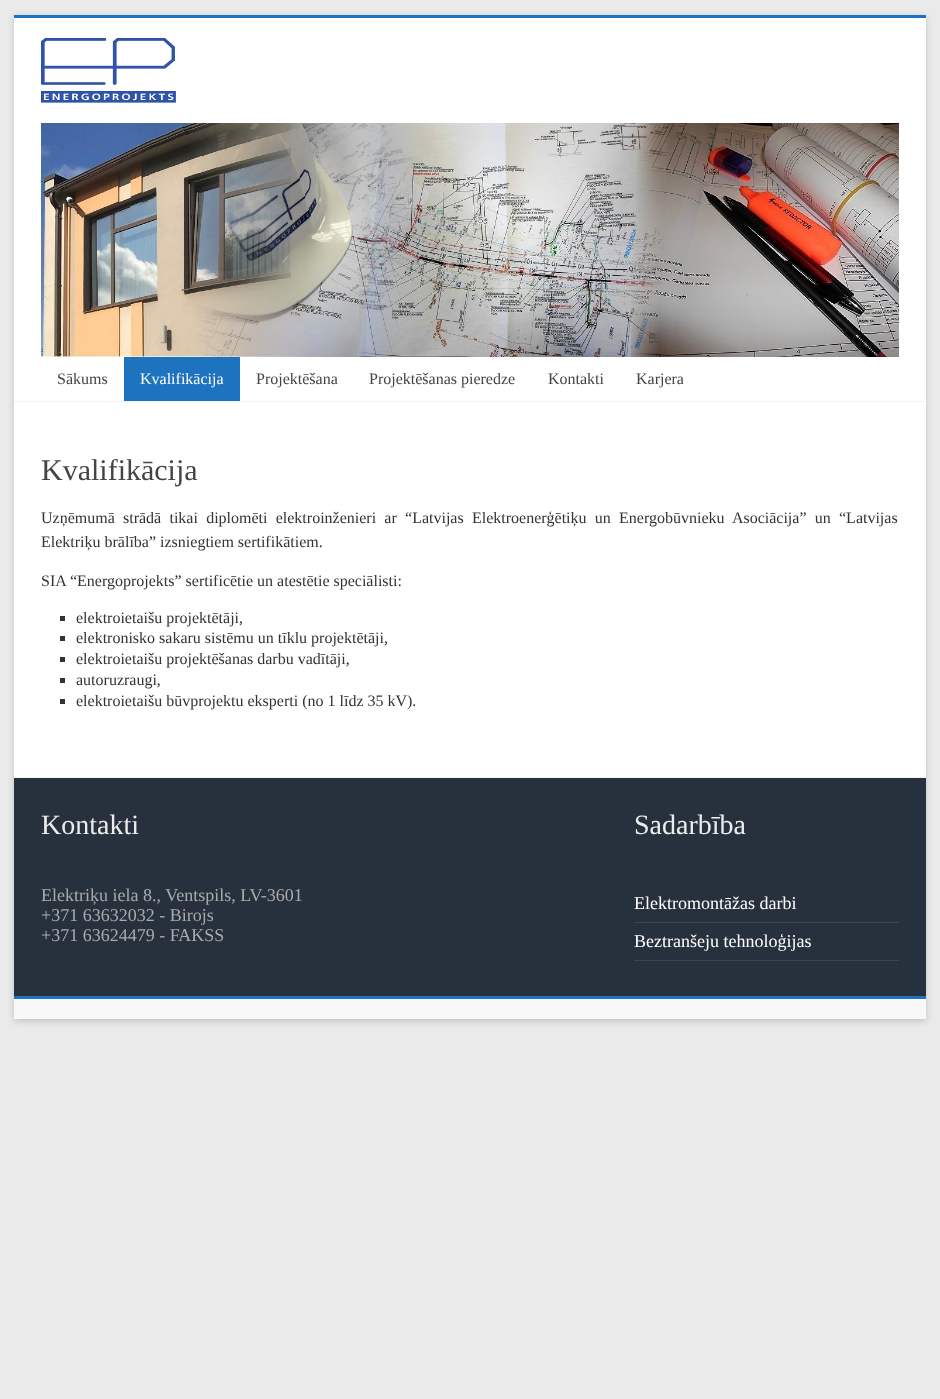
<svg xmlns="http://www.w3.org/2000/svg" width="940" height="1399">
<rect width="100%" height="100%" fill="#eaeaea"/>
<rect x="14" y="17" width="912" height="1004" fill="#6464644d" filter="blur(3px)"/>
<rect x="14" y="18" width="912" height="759" fill="#fff"/>
<rect x="14" y="15" width="912" height="3" fill="#1e73be"/>
<rect x="14" y="401" width="912" height="1" fill="#f2f2f2"/>
<image x="41" y="38" width="135" height="65" href="media/1.png"/>
<image x="41" y="123" width="858" height="234" href="media/2.png"/>
<text x="57" y="384" style="font-family:Liberation Serif;font-size:16px;fill:#444">Sākums</text>
<rect x="124" y="357" width="116" height="44" fill="#1e73be"/>
<text x="140" y="384" style="font-family:Liberation Serif;font-size:16px;fill:#fff">Kvalifikācija</text>
<text x="256" y="384" style="font-family:Liberation Serif;font-size:16px;fill:#444">Projektēšana</text>
<text x="369" y="384" style="font-family:Liberation Serif;font-size:16px;fill:#444">Projektēšanas pieredze</text>
<text x="548" y="384" style="font-family:Liberation Serif;font-size:16px;fill:#444">Kontakti</text>
<text x="636" y="384" style="font-family:Liberation Serif;font-size:16px;fill:#444">Karjera</text>
<text x="41" y="480" style="font-family:Liberation Serif;font-size:30px;fill:#444">Kvalifikācija</text>
<text x="41" y="523" word-spacing="4.25" style="font-family:Liberation Serif;font-size:16px;fill:#333">Uzņēmumā strādā tikai diplomēti elektroinženieri ar “Latvijas Elektroenerģētiķu un Energobūvnieku Asociācija” un “Latvijas</text>
<text x="41" y="547" style="font-family:Liberation Serif;font-size:16px;fill:#333">Elektriķu brālība” izsniegtiem sertifikātiem.</text>
<text x="41" y="586" style="font-family:Liberation Serif;font-size:16px;fill:#333">SIA “Energoprojekts” sertificētie un atestētie speciālisti:</text>
<rect x="60" y="616" width="5" height="5" fill="#333"/>
<text x="76" y="623" style="font-family:Liberation Serif;font-size:16px;fill:#333">elektroietaišu projektētāji,</text>
<rect x="60" y="636" width="5" height="5" fill="#333"/>
<text x="76" y="643" style="font-family:Liberation Serif;font-size:16px;fill:#333">elektronisko sakaru sistēmu un tīklu projektētāji,</text>
<rect x="60" y="657" width="5" height="5" fill="#333"/>
<text x="76" y="664" style="font-family:Liberation Serif;font-size:16px;fill:#333">elektroietaišu projektēšanas darbu vadītāji,</text>
<rect x="60" y="678" width="5" height="5" fill="#333"/>
<text x="76" y="685" style="font-family:Liberation Serif;font-size:16px;fill:#333">autoruzraugi,</text>
<rect x="60" y="699" width="5" height="5" fill="#333"/>
<text x="76" y="706" style="font-family:Liberation Serif;font-size:16px;fill:#333">elektroietaišu būvprojektu eksperti (no 1 līdz 35 kV).</text>
<rect x="14" y="778" width="912" height="218" fill="#27313d"/>
<rect x="14" y="777" width="912" height="1" fill="#f2f2f2"/>
<text x="41" y="834" style="font-family:Liberation Serif;font-size:28px;fill:#ececec">Kontakti</text>
<text x="41" y="901" style="font-family:Liberation Serif;font-size:18px;fill:#aaa">Elektriķu iela 8., Ventspils, LV-3601</text>
<text x="41" y="921" style="font-family:Liberation Serif;font-size:18px;fill:#aaa">+371 63632032 - Birojs</text>
<text x="41" y="941" style="font-family:Liberation Serif;font-size:18px;fill:#aaa">+371 63624479 - FAKSS</text>
<text x="634" y="834" style="font-family:Liberation Serif;font-size:28px;fill:#ececec">Sadarbība</text>
<rect x="634" y="922" width="265" height="1" fill="#444"/>
<text x="634" y="909" style="font-family:Liberation Serif;font-size:18px;fill:#fff">Elektromontāžas darbi</text>
<rect x="634" y="960" width="265" height="1" fill="#444"/>
<text x="634" y="947" style="font-family:Liberation Serif;font-size:18px;fill:#fff">Beztranšeju tehnoloģijas</text>
<rect x="14" y="999" width="912" height="20" fill="#f8f8f8"/>
<rect x="14" y="996" width="912" height="3" fill="#1e73be"/>
</svg>
